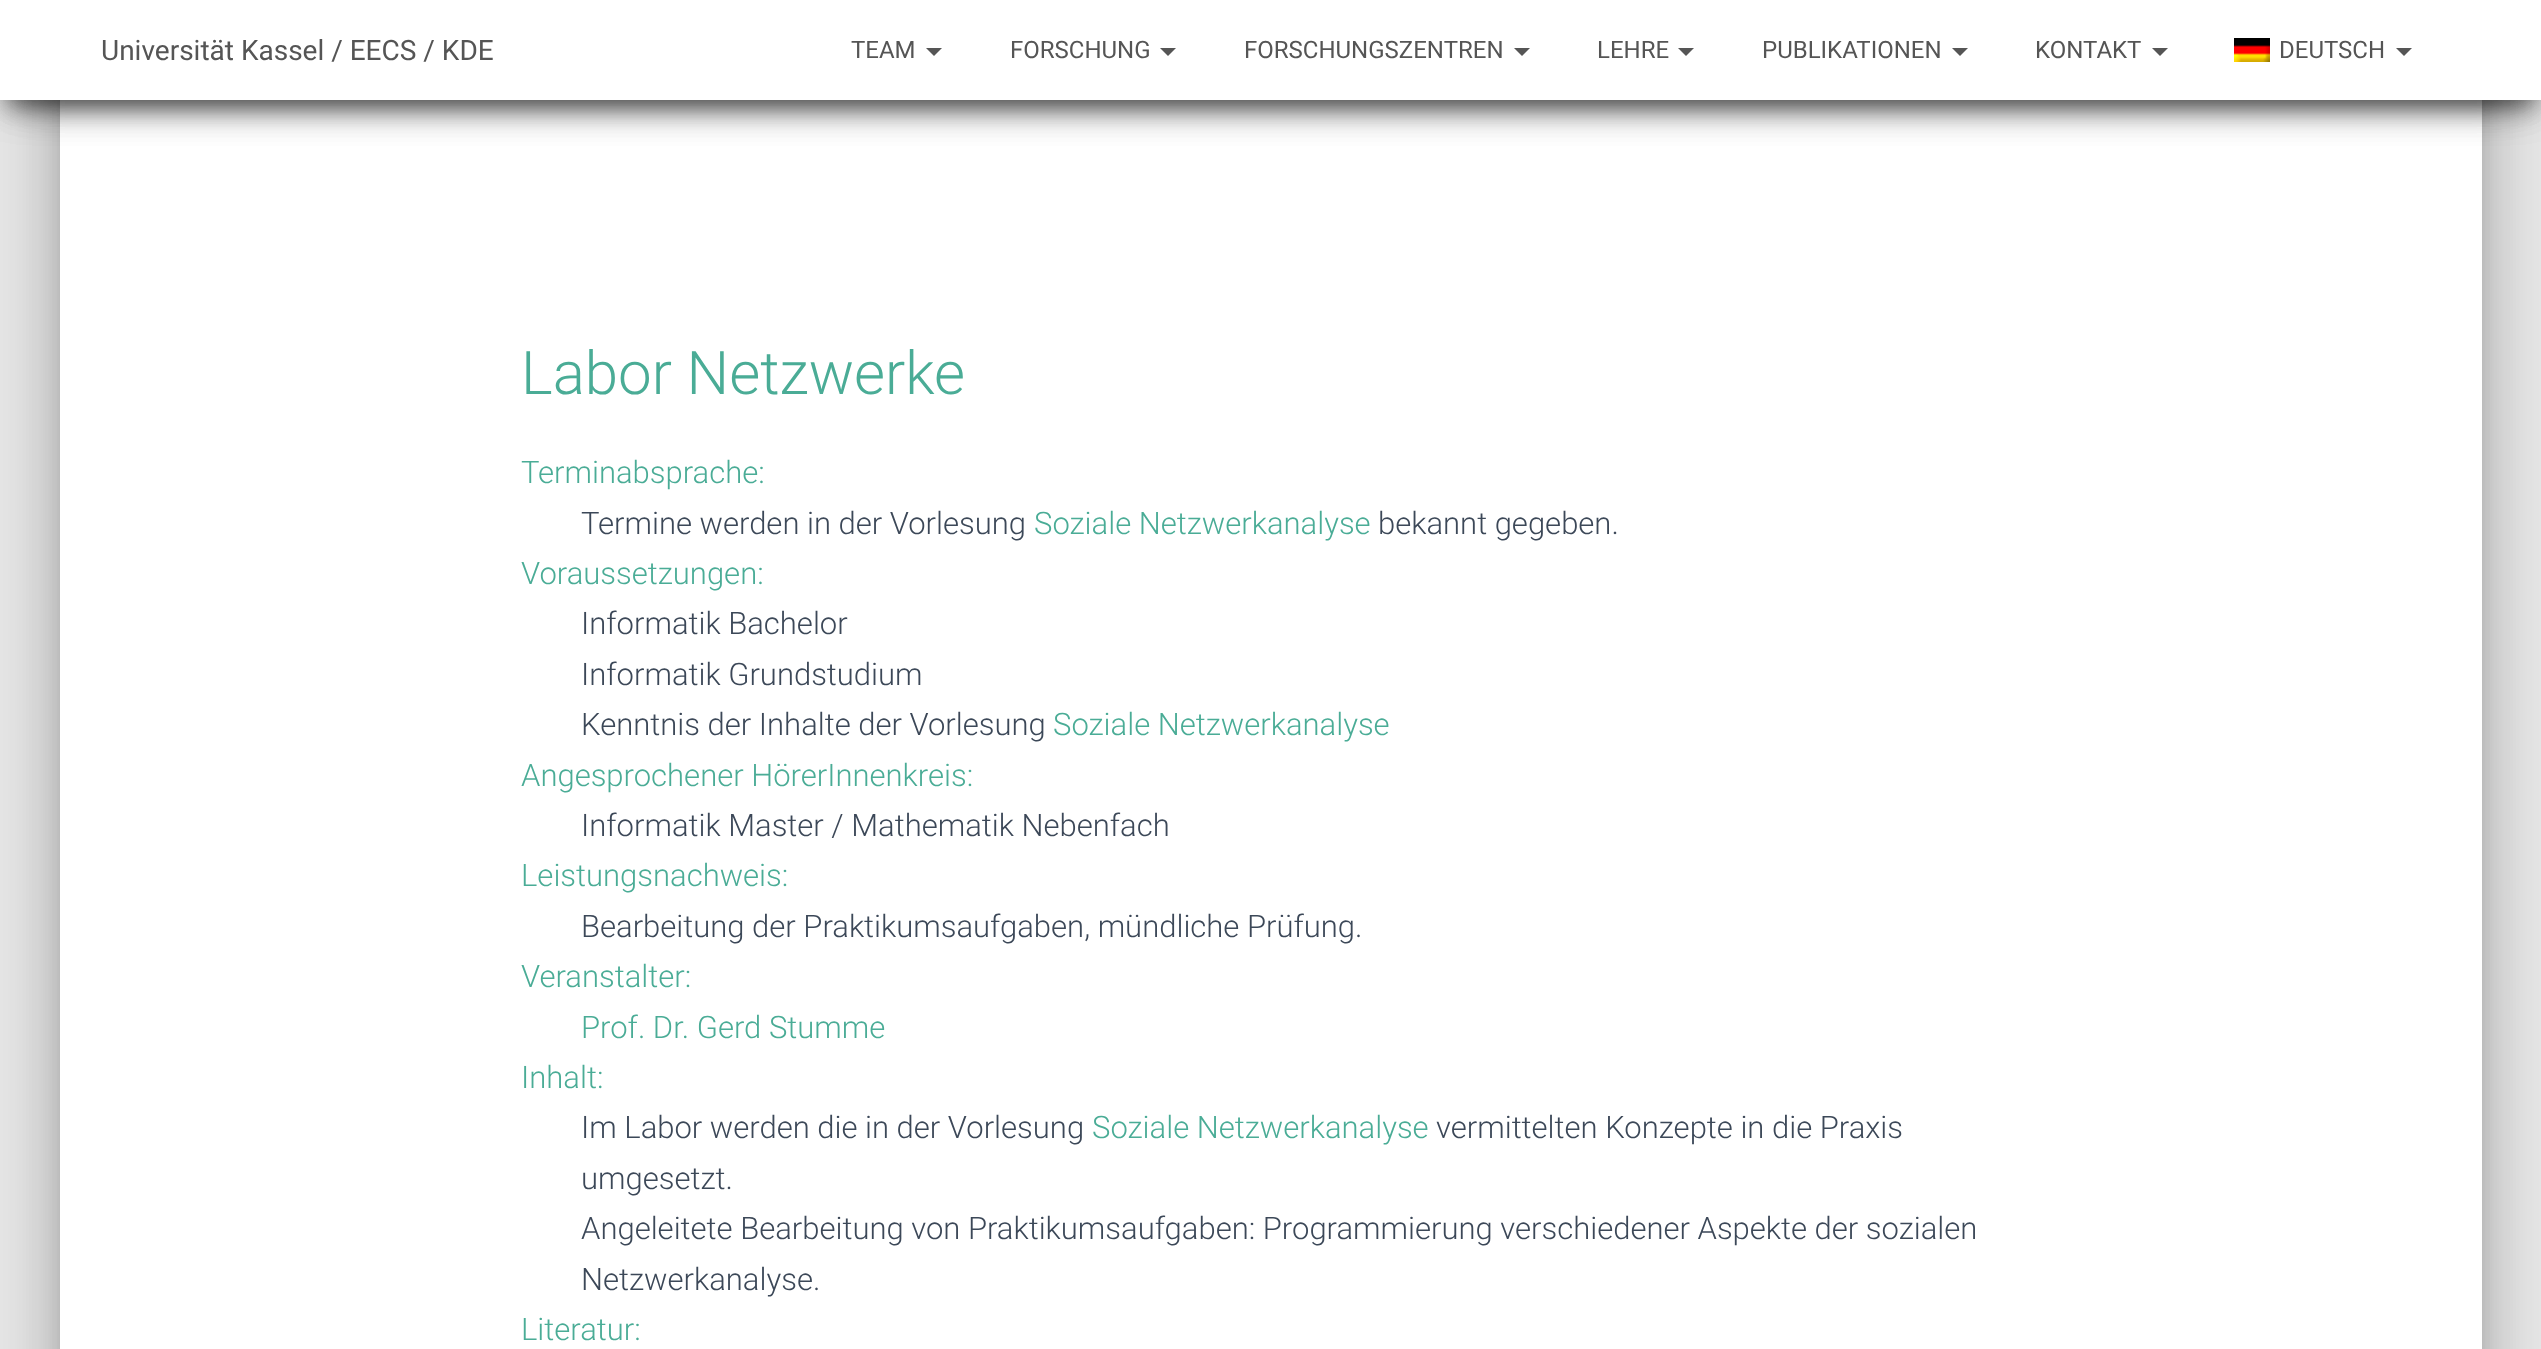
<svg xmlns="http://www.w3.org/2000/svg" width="2541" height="1349">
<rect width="100%" height="100%" fill="#e5e5e5"/>
<rect x="70" y="26" width="2402" height="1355" rx="2" fill="#00000033" filter="blur(10px)"/>
<rect x="50" y="2" width="2442" height="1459" rx="22" fill="#0000001f" filter="blur(30px)"/>
<rect x="56" y="28" width="2430" height="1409" rx="16" fill="#00000024" filter="blur(24px)"/>
<rect x="60" y="100" width="2422" height="1249" fill="#fff"/>
<rect x="10" y="26" width="2522" height="80" fill="#00000033" filter="blur(10px)"/>
<rect y="6" width="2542" height="100" fill="#0000001f" filter="blur(20px)"/>
<rect x="24" y="44" width="2494" height="52" fill="#0000006b" filter="blur(20px)"/>
<rect x="10" y="26" width="2522" height="80" fill="#00000033" filter="blur(10px)"/>
<rect y="6" width="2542" height="100" fill="#0000001f" filter="blur(20px)"/>
<rect x="24" y="44" width="2494" height="52" fill="#0000006b" filter="blur(20px)"/>
<rect width="2541" height="100" fill="#fff"/>
<text x="101" y="60" style="font-family:Roboto;font-size:28px;fill:#555">Universität Kassel / EECS / KDE</text>
<text x="851" y="58" style="font-family:Roboto;font-size:24px;fill:#555">TEAM</text>
<path d="M926 48h16l-8 8z" fill="#555"/>
<text x="1010" y="58" style="font-family:Roboto;font-size:24px;fill:#555">FORSCHUNG</text>
<path d="M1160 48h16l-8 8z" fill="#555"/>
<text x="1244" y="58" style="font-family:Roboto;font-size:24px;fill:#555">FORSCHUNGSZENTREN</text>
<path d="M1514 48h16l-8 8z" fill="#555"/>
<text x="1597" y="58" style="font-family:Roboto;font-size:24px;fill:#555">LEHRE</text>
<path d="M1678 48h16l-8 8z" fill="#555"/>
<text x="1762" y="58" style="font-family:Roboto;font-size:24px;fill:#555">PUBLIKATIONEN</text>
<path d="M1952 48h16l-8 8z" fill="#555"/>
<text x="2035" y="58" style="font-family:Roboto;font-size:24px;fill:#555">KONTAKT</text>
<path d="M2152 48h16l-8 8z" fill="#555"/>
<image x="2234" y="38" width="36" height="24" href="media/1.png"/>
<text x="2279" y="58" style="font-family:Roboto;font-size:24px;fill:#555">DEUTSCH</text>
<path d="M2396 48h16l-8 8z" fill="#555"/>
<text x="521" y="394" style="font-family:Roboto;font-size:60px;font-weight:300;fill:#4aac96">Labor Netzwerke</text>
<text x="521" y="483" style="font-family:Roboto;font-size:31px;font-weight:300;fill:#4aac96">Terminabsprache:</text>
<text x="581" y="534" style="font-family:Roboto;font-size:31px;font-weight:300;fill:#3c4858">Termine werden in der Vorlesung</text>
<text x="1034" y="534" style="font-family:Roboto;font-size:31px;font-weight:300;fill:#4aac96">Soziale Netzwerkanalyse</text>
<text x="1378" y="534" style="font-family:Roboto;font-size:31px;font-weight:300;fill:#3c4858">bekannt gegeben.</text>
<text x="521" y="584" style="font-family:Roboto;font-size:31px;font-weight:300;fill:#4aac96">Voraussetzungen:</text>
<text x="581" y="634" style="font-family:Roboto;font-size:31px;font-weight:300;fill:#3c4858">Informatik Bachelor</text>
<text x="581" y="685" style="font-family:Roboto;font-size:31px;font-weight:300;fill:#3c4858">Informatik Grundstudium</text>
<text x="581" y="735" style="font-family:Roboto;font-size:31px;font-weight:300;fill:#3c4858">Kenntnis der Inhalte der Vorlesung</text>
<text x="1053" y="735" style="font-family:Roboto;font-size:31px;font-weight:300;fill:#4aac96">Soziale Netzwerkanalyse</text>
<text x="521" y="786" style="font-family:Roboto;font-size:31px;font-weight:300;fill:#4aac96">Angesprochener HörerInnenkreis:</text>
<text x="581" y="836" style="font-family:Roboto;font-size:31px;font-weight:300;fill:#3c4858">Informatik Master / Mathematik Nebenfach</text>
<text x="521" y="886" style="font-family:Roboto;font-size:31px;font-weight:300;fill:#4aac96">Leistungsnachweis:</text>
<text x="581" y="937" style="font-family:Roboto;font-size:31px;font-weight:300;fill:#3c4858">Bearbeitung der Praktikumsaufgaben, mündliche Prüfung.</text>
<text x="521" y="987" style="font-family:Roboto;font-size:31px;font-weight:300;fill:#4aac96">Veranstalter:</text>
<text x="581" y="1038" style="font-family:Roboto;font-size:31px;font-weight:300;fill:#4aac96">Prof. Dr. Gerd Stumme</text>
<text x="521" y="1088" style="font-family:Roboto;font-size:31px;font-weight:300;fill:#4aac96">Inhalt:</text>
<text x="581" y="1138" style="font-family:Roboto;font-size:31px;font-weight:300;fill:#3c4858">Im Labor werden die in der Vorlesung</text>
<text x="1092" y="1138" style="font-family:Roboto;font-size:31px;font-weight:300;fill:#4aac96">Soziale Netzwerkanalyse</text>
<text x="1436" y="1138" style="font-family:Roboto;font-size:31px;font-weight:300;fill:#3c4858">vermittelten Konzepte in die Praxis</text>
<text x="581" y="1189" style="font-family:Roboto;font-size:31px;font-weight:300;fill:#3c4858">umgesetzt.</text>
<text x="581" y="1239" style="font-family:Roboto;font-size:31px;font-weight:300;fill:#3c4858">Angeleitete Bearbeitung von Praktikumsaufgaben: Programmierung verschiedener Aspekte der sozialen</text>
<text x="581" y="1290" style="font-family:Roboto;font-size:31px;font-weight:300;fill:#3c4858">Netzwerkanalyse.</text>
<text x="521" y="1340" style="font-family:Roboto;font-size:31px;font-weight:300;fill:#4aac96">Literatur:</text>
</svg>
